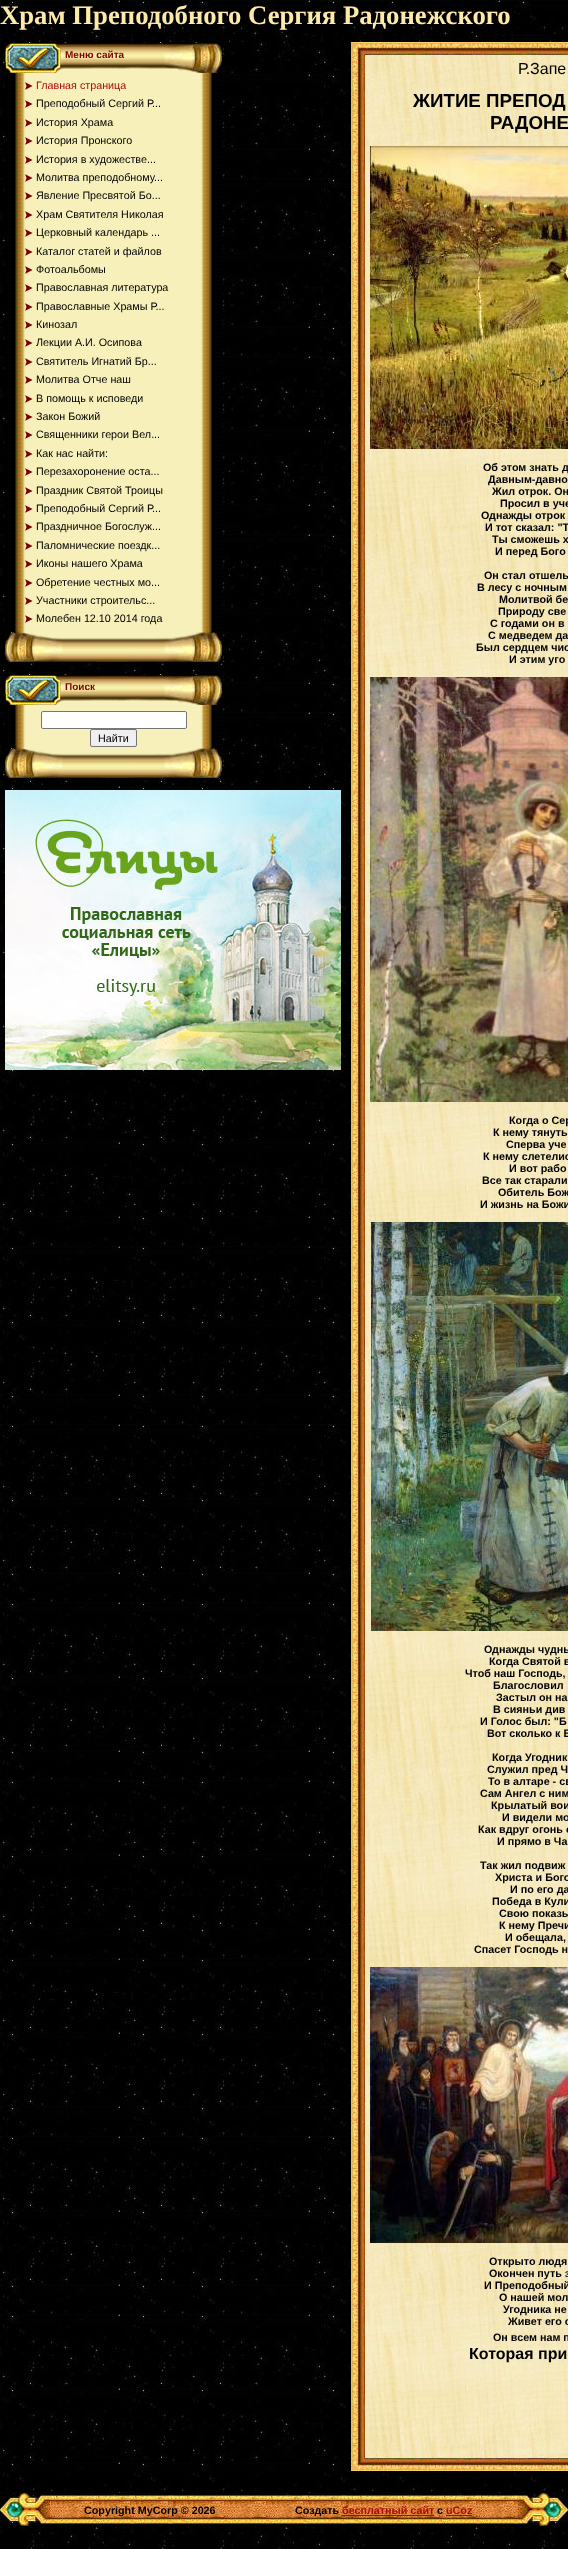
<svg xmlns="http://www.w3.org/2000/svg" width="568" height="2549">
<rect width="100%" height="100%" fill="#fff"/>
<image x="0" y="0" width="568" height="2549" href="media/1.png"/>
<text x="0" y="24" style="font-family:Liberation Serif;font-size:26.7px;font-weight:bold;fill:#fdeaa8">Храм Преподобного Сергия Радонежского</text>
<image x="5" y="74" width="217" height="557" href="media/2.png"/>
<image x="5" y="42" width="217" height="32" href="media/3.png"/>
<text x="65" y="58" style="font-family:Liberation Sans;font-size:10px;font-weight:bold;fill:#790000">Меню сайта</text>
<image x="25" y="82" width="8" height="8" href="media/4.png"/>
<text x="36" y="89" style="font-family:Liberation Sans;font-size:10.75px;fill:#ad090e">Главная страница</text>
<image x="25" y="100" width="8" height="8" href="media/5.png"/>
<text x="36" y="107" style="font-family:Liberation Sans;font-size:10.75px;fill:#000">Преподобный Сергий Р...</text>
<image x="25" y="119" width="8" height="8" href="media/6.png"/>
<text x="36" y="126" style="font-family:Liberation Sans;font-size:10.75px;fill:#000">История Храма</text>
<image x="25" y="137" width="8" height="8" href="media/7.png"/>
<text x="36" y="144" style="font-family:Liberation Sans;font-size:10.75px;fill:#000">История Пронского</text>
<image x="25" y="156" width="8" height="8" href="media/5.png"/>
<text x="36" y="163" style="font-family:Liberation Sans;font-size:10.75px;fill:#000">История в художестве...</text>
<image x="25" y="174" width="8" height="8" href="media/4.png"/>
<text x="36" y="181" style="font-family:Liberation Sans;font-size:10.75px;fill:#000">Молитва преподобному...</text>
<image x="25" y="192" width="8" height="8" href="media/5.png"/>
<text x="36" y="199" style="font-family:Liberation Sans;font-size:10.75px;fill:#000">Явление Пресвятой Бо...</text>
<image x="25" y="211" width="8" height="8" href="media/6.png"/>
<text x="36" y="218" style="font-family:Liberation Sans;font-size:10.75px;fill:#000">Храм Святителя Николая</text>
<image x="25" y="229" width="8" height="8" href="media/7.png"/>
<text x="36" y="236" style="font-family:Liberation Sans;font-size:10.75px;fill:#000">Церковный календарь ...</text>
<image x="25" y="248" width="8" height="8" href="media/5.png"/>
<text x="36" y="255" style="font-family:Liberation Sans;font-size:10.75px;fill:#000">Каталог статей и файлов</text>
<image x="25" y="266" width="8" height="8" href="media/4.png"/>
<text x="36" y="273" style="font-family:Liberation Sans;font-size:10.75px;fill:#000">Фотоальбомы</text>
<image x="25" y="284" width="8" height="8" href="media/5.png"/>
<text x="36" y="291" style="font-family:Liberation Sans;font-size:10.75px;fill:#000">Православная литература</text>
<image x="25" y="303" width="8" height="8" href="media/6.png"/>
<text x="36" y="310" style="font-family:Liberation Sans;font-size:10.75px;fill:#000">Православные Храмы Р...</text>
<image x="25" y="321" width="8" height="8" href="media/7.png"/>
<text x="36" y="328" style="font-family:Liberation Sans;font-size:10.75px;fill:#000">Кинозал</text>
<image x="25" y="339" width="8" height="8" href="media/6.png"/>
<text x="36" y="346" style="font-family:Liberation Sans;font-size:10.75px;fill:#000">Лекции А.И. Осипова</text>
<image x="25" y="358" width="8" height="8" href="media/4.png"/>
<text x="36" y="365" style="font-family:Liberation Sans;font-size:10.75px;fill:#000">Святитель Игнатий Бр...</text>
<image x="25" y="376" width="8" height="8" href="media/5.png"/>
<text x="36" y="383" style="font-family:Liberation Sans;font-size:10.75px;fill:#000">Молитва Отче наш</text>
<image x="25" y="395" width="8" height="8" href="media/6.png"/>
<text x="36" y="402" style="font-family:Liberation Sans;font-size:10.75px;fill:#000">В помощь к исповеди</text>
<image x="25" y="413" width="8" height="8" href="media/7.png"/>
<text x="36" y="420" style="font-family:Liberation Sans;font-size:10.75px;fill:#000">Закон Божий</text>
<image x="25" y="431" width="8" height="8" href="media/6.png"/>
<text x="36" y="438" style="font-family:Liberation Sans;font-size:10.75px;fill:#000">Священники герои Вел...</text>
<image x="25" y="450" width="8" height="8" href="media/4.png"/>
<text x="36" y="457" style="font-family:Liberation Sans;font-size:10.75px;fill:#000">Как нас найти:</text>
<image x="25" y="468" width="8" height="8" href="media/5.png"/>
<text x="36" y="475" style="font-family:Liberation Sans;font-size:10.75px;fill:#000">Перезахоронение оста...</text>
<image x="25" y="487" width="8" height="8" href="media/6.png"/>
<text x="36" y="494" style="font-family:Liberation Sans;font-size:10.75px;fill:#000">Праздник Святой Троицы</text>
<image x="25" y="505" width="8" height="8" href="media/7.png"/>
<text x="36" y="512" style="font-family:Liberation Sans;font-size:10.75px;fill:#000">Преподобный Сергий Р...</text>
<image x="25" y="523" width="8" height="8" href="media/6.png"/>
<text x="36" y="530" style="font-family:Liberation Sans;font-size:10.75px;fill:#000">Праздничное Богослуж...</text>
<image x="25" y="542" width="8" height="8" href="media/4.png"/>
<text x="36" y="549" style="font-family:Liberation Sans;font-size:10.75px;fill:#000">Паломнические поездк...</text>
<image x="25" y="560" width="8" height="8" href="media/5.png"/>
<text x="36" y="567" style="font-family:Liberation Sans;font-size:10.75px;fill:#000">Иконы нашего Храма</text>
<image x="25" y="579" width="8" height="8" href="media/6.png"/>
<text x="36" y="586" style="font-family:Liberation Sans;font-size:10.75px;fill:#000">Обретение честных мо...</text>
<image x="25" y="597" width="8" height="8" href="media/7.png"/>
<text x="36" y="604" style="font-family:Liberation Sans;font-size:10.75px;fill:#000">Участники строительс...</text>
<image x="25" y="615" width="8" height="8" href="media/6.png"/>
<text x="36" y="622" style="font-family:Liberation Sans;font-size:10.75px;fill:#000">Молебен 12.10 2014 года</text>
<image x="5" y="631" width="217" height="31" href="media/8.png"/>
<image x="5" y="706" width="217" height="41" href="media/9.png"/>
<image x="5" y="674" width="217" height="32" href="media/3.png"/>
<text x="65" y="690" style="font-family:Liberation Sans;font-size:10px;font-weight:bold;fill:#790000">Поиск</text>
<rect x="41.5" y="711.5" width="145" height="17" rx="1.5" fill="#fff" stroke="#767676"/>
<rect x="90.5" y="729.5" width="46" height="17" rx="1.5" fill="#efefef" stroke="#767676"/>
<text x="98" y="742" style="font-family:Liberation Sans;font-size:10.75px;fill:#000">Найти</text>
<image x="5" y="747" width="217" height="31" href="media/8.png"/>
<image x="5" y="790" width="336" height="280" href="media/10.png"/>
<image x="351" y="42" width="14" height="13" href="media/11.png"/>
<image x="365" y="42" width="203" height="13" href="media/12.png"/>
<image x="351" y="55" width="14" height="2403" href="media/13.png"/>
<image x="365" y="55" width="203" height="2403" href="media/14.png"/>
<text x="518" y="74" style="font-family:Liberation Sans;font-size:16px;fill:#000">Р.Запе</text>
<text x="413" y="107" style="font-family:Liberation Sans;font-size:18.75px;font-weight:bold;fill:#000">ЖИТИЕ ПРЕПОД</text>
<text x="490" y="129" style="font-family:Liberation Sans;font-size:18.75px;font-weight:bold;fill:#000">РАДОНЕ</text>
<image x="370" y="146" width="198" height="303" href="media/15.png"/>
<text x="483" y="471" style="font-family:Liberation Sans;font-size:10.75px;font-weight:bold;fill:#000">Об этом знать д</text>
<text x="488" y="483" style="font-family:Liberation Sans;font-size:10.75px;font-weight:bold;fill:#000">Давным-давно</text>
<text x="492" y="495" style="font-family:Liberation Sans;font-size:10.75px;font-weight:bold;fill:#000">Жил отрок. Он</text>
<text x="500" y="507" style="font-family:Liberation Sans;font-size:10.75px;font-weight:bold;fill:#000">Просил в уче</text>
<text x="481" y="519" style="font-family:Liberation Sans;font-size:10.75px;font-weight:bold;fill:#000">Однажды отрок</text>
<text x="485" y="531" style="font-family:Liberation Sans;font-size:10.75px;font-weight:bold;fill:#000">И тот сказал: "Т</text>
<text x="492" y="543" style="font-family:Liberation Sans;font-size:10.75px;font-weight:bold;fill:#000">Ты сможешь х</text>
<text x="495" y="555" style="font-family:Liberation Sans;font-size:10.75px;font-weight:bold;fill:#000">И перед Бого</text>
<text x="484" y="579" style="font-family:Liberation Sans;font-size:10.75px;font-weight:bold;fill:#000">Он стал отшель</text>
<text x="477" y="591" style="font-family:Liberation Sans;font-size:10.75px;font-weight:bold;fill:#000">В лесу с ночным</text>
<text x="499" y="603" style="font-family:Liberation Sans;font-size:10.75px;font-weight:bold;fill:#000">Молитвой бе</text>
<text x="498" y="615" style="font-family:Liberation Sans;font-size:10.75px;font-weight:bold;fill:#000">Природу све</text>
<text x="490" y="627" style="font-family:Liberation Sans;font-size:10.75px;font-weight:bold;fill:#000">С годами он в</text>
<text x="488" y="639" style="font-family:Liberation Sans;font-size:10.75px;font-weight:bold;fill:#000">С медведем да</text>
<text x="476" y="651" style="font-family:Liberation Sans;font-size:10.75px;font-weight:bold;fill:#000">Был сердцем чис</text>
<text x="509" y="663" style="font-family:Liberation Sans;font-size:10.75px;font-weight:bold;fill:#000">И этим уго</text>
<image x="370" y="677" width="198" height="425" href="media/16.png"/>
<text x="509" y="1124" style="font-family:Liberation Sans;font-size:10.75px;font-weight:bold;fill:#000">Когда о Сер</text>
<text x="493" y="1136" style="font-family:Liberation Sans;font-size:10.75px;font-weight:bold;fill:#000">К нему тянуть</text>
<text x="506" y="1148" style="font-family:Liberation Sans;font-size:10.75px;font-weight:bold;fill:#000">Сперва уче</text>
<text x="483" y="1160" style="font-family:Liberation Sans;font-size:10.75px;font-weight:bold;fill:#000">К нему слетелис</text>
<text x="509" y="1172" style="font-family:Liberation Sans;font-size:10.75px;font-weight:bold;fill:#000">И вот рабо</text>
<text x="482" y="1184" style="font-family:Liberation Sans;font-size:10.75px;font-weight:bold;fill:#000">Все так старали</text>
<text x="498" y="1196" style="font-family:Liberation Sans;font-size:10.75px;font-weight:bold;fill:#000">Обитель Бож</text>
<text x="480" y="1208" style="font-family:Liberation Sans;font-size:10.75px;font-weight:bold;fill:#000">И жизнь на Божи</text>
<image x="371" y="1222" width="197" height="409" href="media/17.png"/>
<text x="484" y="1653" style="font-family:Liberation Sans;font-size:10.75px;font-weight:bold;fill:#000">Однажды чудны</text>
<text x="489" y="1665" style="font-family:Liberation Sans;font-size:10.75px;font-weight:bold;fill:#000">Когда Святой в</text>
<text x="465" y="1677" style="font-family:Liberation Sans;font-size:10.75px;font-weight:bold;fill:#000">Чтоб наш Господь,</text>
<text x="493" y="1689" style="font-family:Liberation Sans;font-size:10.75px;font-weight:bold;fill:#000">Благословил</text>
<text x="496" y="1701" style="font-family:Liberation Sans;font-size:10.75px;font-weight:bold;fill:#000">Застыл он на</text>
<text x="493" y="1713" style="font-family:Liberation Sans;font-size:10.75px;font-weight:bold;fill:#000">В сияньи див</text>
<text x="480" y="1725" style="font-family:Liberation Sans;font-size:10.75px;font-weight:bold;fill:#000">И Голос был: "Б</text>
<text x="487" y="1737" style="font-family:Liberation Sans;font-size:10.75px;font-weight:bold;fill:#000">Вот сколько к Б</text>
<text x="492" y="1761" style="font-family:Liberation Sans;font-size:10.75px;font-weight:bold;fill:#000">Когда Угодник</text>
<text x="487" y="1773" style="font-family:Liberation Sans;font-size:10.75px;font-weight:bold;fill:#000">Служил пред Ч</text>
<text x="488" y="1785" style="font-family:Liberation Sans;font-size:10.75px;font-weight:bold;fill:#000">То в алтаре - св</text>
<text x="480" y="1797" style="font-family:Liberation Sans;font-size:10.75px;font-weight:bold;fill:#000">Сам Ангел с ним</text>
<text x="491" y="1809" style="font-family:Liberation Sans;font-size:10.75px;font-weight:bold;fill:#000">Крылатый вои</text>
<text x="502" y="1821" style="font-family:Liberation Sans;font-size:10.75px;font-weight:bold;fill:#000">И видели мо</text>
<text x="478" y="1833" style="font-family:Liberation Sans;font-size:10.75px;font-weight:bold;fill:#000">Как вдруг огонь с</text>
<text x="497" y="1845" style="font-family:Liberation Sans;font-size:10.75px;font-weight:bold;fill:#000">И прямо в Ча</text>
<text x="480" y="1869" style="font-family:Liberation Sans;font-size:10.75px;font-weight:bold;fill:#000">Так жил подвиж</text>
<text x="495" y="1881" style="font-family:Liberation Sans;font-size:10.75px;font-weight:bold;fill:#000">Христа и Бого</text>
<text x="510" y="1893" style="font-family:Liberation Sans;font-size:10.75px;font-weight:bold;fill:#000">И по его да</text>
<text x="492" y="1905" style="font-family:Liberation Sans;font-size:10.75px;font-weight:bold;fill:#000">Победа в Кули</text>
<text x="499" y="1917" style="font-family:Liberation Sans;font-size:10.75px;font-weight:bold;fill:#000">Свою показы</text>
<text x="499" y="1929" style="font-family:Liberation Sans;font-size:10.75px;font-weight:bold;fill:#000">К нему Пречи</text>
<text x="505" y="1941" style="font-family:Liberation Sans;font-size:10.75px;font-weight:bold;fill:#000">И обещала,</text>
<text x="474" y="1953" style="font-family:Liberation Sans;font-size:10.75px;font-weight:bold;fill:#000">Спасет Господь н</text>
<image x="370" y="1967" width="198" height="276" href="media/18.png"/>
<text x="489" y="2265" style="font-family:Liberation Sans;font-size:10.75px;font-weight:bold;fill:#000">Открыто людя</text>
<text x="489" y="2277" style="font-family:Liberation Sans;font-size:10.75px;font-weight:bold;fill:#000">Окончен путь з</text>
<text x="484" y="2289" style="font-family:Liberation Sans;font-size:10.75px;font-weight:bold;fill:#000">И Преподобный</text>
<text x="499" y="2301" style="font-family:Liberation Sans;font-size:10.75px;font-weight:bold;fill:#000">О нашей мол</text>
<text x="503" y="2313" style="font-family:Liberation Sans;font-size:10.75px;font-weight:bold;fill:#000">Угодника не</text>
<text x="508" y="2325" style="font-family:Liberation Sans;font-size:10.75px;font-weight:bold;fill:#000">Живет его с</text>
<text x="493" y="2341" style="font-family:Liberation Sans;font-size:10.75px;font-weight:bold;fill:#000">Он всем нам п</text>
<text x="469" y="2359" style="font-family:Liberation Sans;font-size:16px;font-weight:bold;fill:#000">Которая при</text>
<image x="351" y="2458" width="14" height="13" href="media/19.png"/>
<image x="365" y="2458" width="203" height="13" href="media/20.png"/>
<image x="50" y="2493" width="468" height="33" href="media/21.png"/>
<image x="0" y="2493" width="50" height="33" href="media/22.png"/>
<text x="84" y="2514" style="font-family:Liberation Sans;font-size:10.75px;font-weight:bold;fill:#000">Copyright MyCorp © 2026</text>
<text x="295" y="2514" style="font-family:Liberation Sans;font-size:10.75px;font-weight:bold;fill:#000">Создать</text>
<text x="342" y="2514" style="font-family:Liberation Sans;font-size:10.75px;font-weight:bold;fill:#ad090e">бесплатный сайт</text>
<rect x="342" y="2515" width="92" height="1" fill="#ad090e"/>
<text x="437" y="2514" style="font-family:Liberation Sans;font-size:10.75px;font-weight:bold;fill:#000">с</text>
<text x="446" y="2514" style="font-family:Liberation Sans;font-size:10.75px;font-weight:bold;fill:#ad090e">uCoz</text>
<rect x="446" y="2515" width="26" height="1" fill="#ad090e"/>
<image x="518" y="2493" width="50" height="33" href="media/23.png"/>
</svg>
